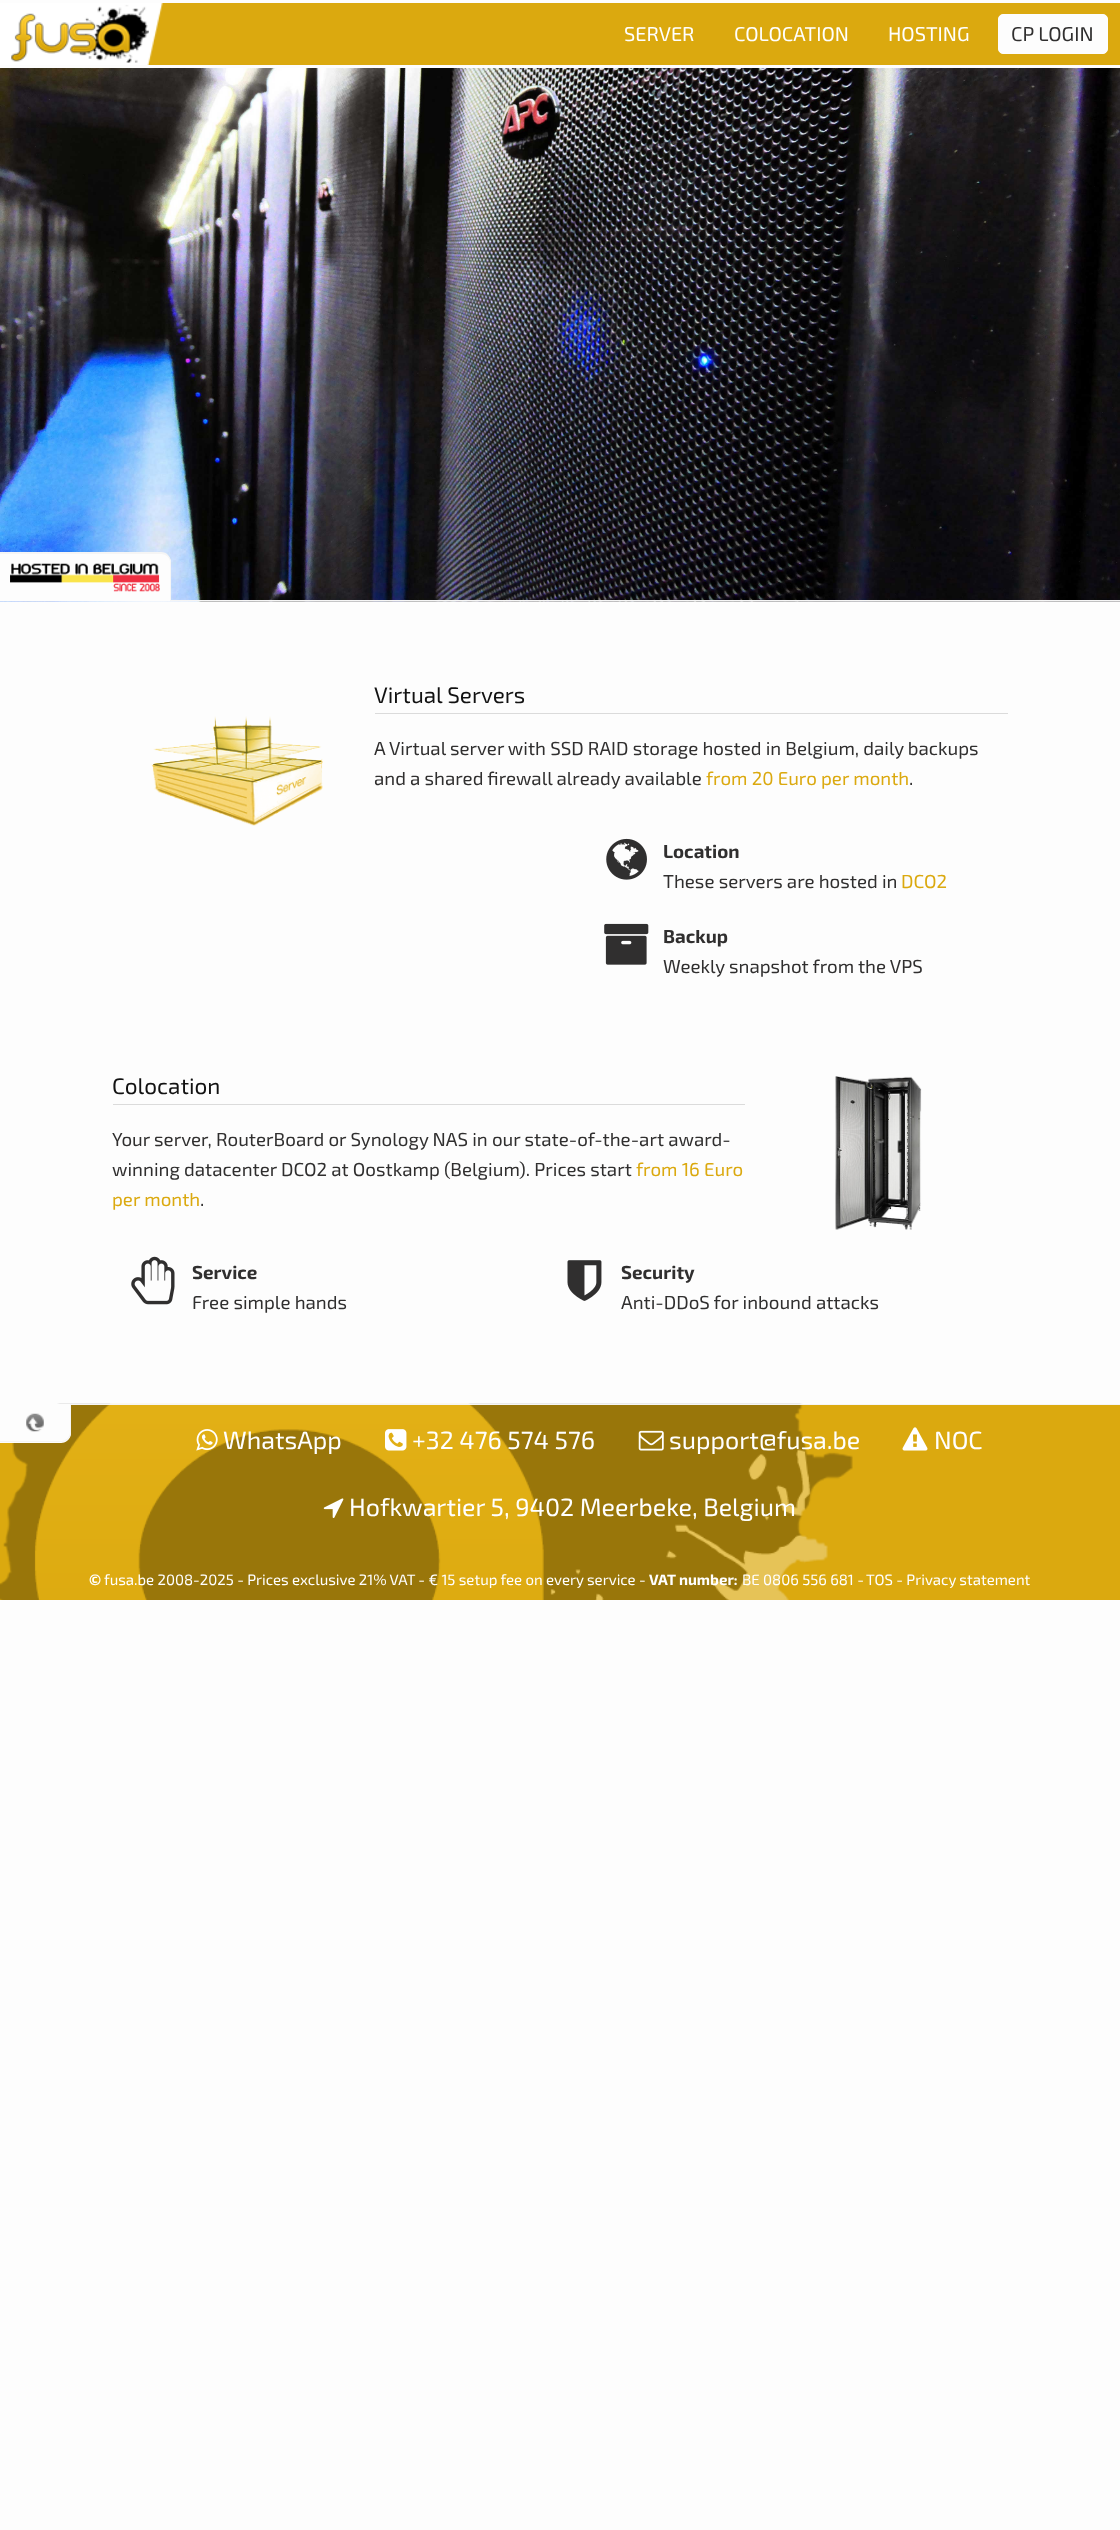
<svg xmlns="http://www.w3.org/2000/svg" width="1120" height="2530">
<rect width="100%" height="100%" fill="#fdfdfd"/>
<rect x="147" y="3" width="973" height="62" fill="#dba90f"/>
<image x="0" y="3" width="163" height="62" href="media/1.png"/>
<text x="624" y="41" style="font-family:'Exo 2';font-size:20px;fill:#fff">SERVER</text>
<text x="734" y="41" style="font-family:'Exo 2';font-size:20px;fill:#fff">COLOCATION</text>
<text x="888" y="41" style="font-family:'Exo 2';font-size:20px;fill:#fff">HOSTING</text>
<rect x="998.5" y="14.5" width="109" height="39" rx="4.5" fill="#fdfdfd" stroke="#fdfdfd"/>
<text x="1011" y="41" style="font-family:'Exo 2';font-size:20px;fill:#302f2f">CP LOGIN</text>
<image x="0" y="68" width="1120" height="534" href="media/2.png"/>
<rect x="171" y="600" width="949" height="1" fill="#f5f5f5"/>
<path d="M0 553h161c5.5 0 10 4.5 10 10v38h-171z" fill="#fdfdfd"/>
<path d="M0 552h161c6 0 10 5 10 10v39h-171zm0 2h161c5 0 9 4 9 8v39h-170z" fill="#f5f5f5" fill-rule="evenodd"/>
<image x="10" y="563" width="150" height="29" href="media/3.png"/>
<rect x="375" y="713" width="633" height="1" fill="#dbdbdb"/>
<text x="374" y="703" style="font-family:'Exo 2';font-size:22.5px;fill:#121212">Virtual Servers</text>
<image x="151" y="716" width="172" height="110" href="media/4.png"/>
<text x="374" y="755" style="font-family:'Exo 2';font-size:18.75px;fill:#302f2f">A Virtual server with SSD RAID storage hosted in Belgium, daily backups</text>
<text x="374" y="785" style="font-family:'Exo 2';font-size:18.75px;fill:#302f2f">and a shared firewall already available</text>
<text x="706" y="785" style="font-family:'Exo 2';font-size:18.75px;fill:#dba90f">from 20 Euro per month</text>
<text x="909" y="785" style="font-family:'Exo 2';font-size:18.75px;fill:#302f2f">.</text>
<image x="606" y="838" width="41" height="42" href="media/5.png"/>
<text x="663" y="858" style="font-family:'Exo 2';font-size:18.75px;font-weight:bold;fill:#302f2f">Location</text>
<text x="663" y="888" style="font-family:'Exo 2';font-size:18.75px;fill:#302f2f">These servers are hosted in</text>
<text x="901" y="888" style="font-family:'Exo 2';font-size:18.75px;fill:#dba90f">DCO2</text>
<image x="604" y="923" width="45" height="42" href="media/6.png"/>
<text x="663" y="943" style="font-family:'Exo 2';font-size:18.75px;font-weight:bold;fill:#302f2f">Backup</text>
<text x="663" y="973" style="font-family:'Exo 2';font-size:18.75px;fill:#302f2f">Weekly snapshot from the VPS</text>
<rect x="113" y="1104" width="632" height="1" fill="#dbdbdb"/>
<text x="112" y="1094" style="font-family:'Exo 2';font-size:22.5px;fill:#121212">Colocation</text>
<image x="835" y="1076" width="87" height="154" href="media/7.png"/>
<text x="112" y="1146" style="font-family:'Exo 2';font-size:18.75px;fill:#302f2f">Your server, RouterBoard or Synology NAS in our state-of-the-art award-</text>
<text x="112" y="1176" style="font-family:'Exo 2';font-size:18.75px;fill:#302f2f">winning datacenter DCO2 at Oostkamp (Belgium). Prices start</text>
<text x="636" y="1176" style="font-family:'Exo 2';font-size:18.75px;fill:#dba90f">from 16 Euro</text>
<text x="112" y="1206" style="font-family:'Exo 2';font-size:18.75px;fill:#dba90f">per month</text>
<text x="200" y="1206" style="font-family:'Exo 2';font-size:18.75px;fill:#302f2f">.</text>
<image x="131" y="1256" width="44" height="49" href="media/8.png"/>
<text x="192" y="1279" style="font-family:'Exo 2';font-size:18.75px;font-weight:bold;fill:#302f2f">Service</text>
<text x="192" y="1309" style="font-family:'Exo 2';font-size:18.75px;fill:#302f2f">Free simple hands</text>
<image x="567" y="1260" width="35" height="41" href="media/9.png"/>
<text x="621" y="1279" style="font-family:'Exo 2';font-size:18.75px;font-weight:bold;fill:#302f2f">Security</text>
<text x="621" y="1309" style="font-family:'Exo 2';font-size:18.75px;fill:#302f2f">Anti-DDoS for inbound attacks</text>
<rect y="1405" width="1120" height="195" fill="#dba90f"/>
<image x="0" y="1403" width="853" height="197" href="media/11.png"/>
<path d="M0 1404h71v29c0 5.5-4.5 10-10 10h-61z" fill="#fdfdfd"/>
<path d="M0 1404h71v28c0 6-4 10-10 10h-61zm0 0h70v28c0 5-4 9-9 9h-61z" fill="#f5f5f5" fill-rule="evenodd"/>
<image x="26" y="1413" width="18" height="19" href="media/10.png"/>
<rect x="71" y="1404" width="1049" height="1" fill="#f5f5f5"/>
<image x="196" y="1429" width="22" height="22" href="media/12.png"/>
<text x="223" y="1449" style="font-family:'Exo 2';font-size:25px;fill:#fff">WhatsApp</text>
<image x="385" y="1429" width="22" height="22" href="media/13.png"/>
<text x="412" y="1449" style="font-family:'Exo 2';font-size:25px;fill:#fff">+32 476 574 576</text>
<image x="638" y="1430" width="26" height="21" href="media/14.png"/>
<text x="669" y="1449" style="font-family:'Exo 2';font-size:25px;fill:#fff">support@fusa.be</text>
<image x="902" y="1427" width="26" height="24" href="media/15.png"/>
<text x="934" y="1449" style="font-family:'Exo 2';font-size:25px;fill:#fff">NOC</text>
<image x="323" y="1498" width="21" height="20" href="media/16.png"/>
<text x="349" y="1516" style="font-family:'Exo 2';font-size:25px;fill:#fff">Hofkwartier 5, 9402 Meerbeke, Belgium</text>
<text x="89" y="1585" style="font-family:'Exo 2';font-size:15px;font-weight:bold;fill:#fff">©</text>
<text x="104" y="1585" style="font-family:'Exo 2';font-size:15px;fill:#fff">fusa.be 2008-2025 - Prices exclusive 21% VAT - € 15 setup fee on every service -</text>
<text x="649" y="1585" style="font-family:'Exo 2';font-size:15px;font-weight:bold;fill:#fff">VAT number:</text>
<text x="742" y="1585" style="font-family:'Exo 2';font-size:15px;fill:#fff">BE 0806 556 681 -</text>
<text x="866" y="1585" style="font-family:'Exo 2';font-size:15px;fill:#fff">TOS - Privacy statement</text>
</svg>
